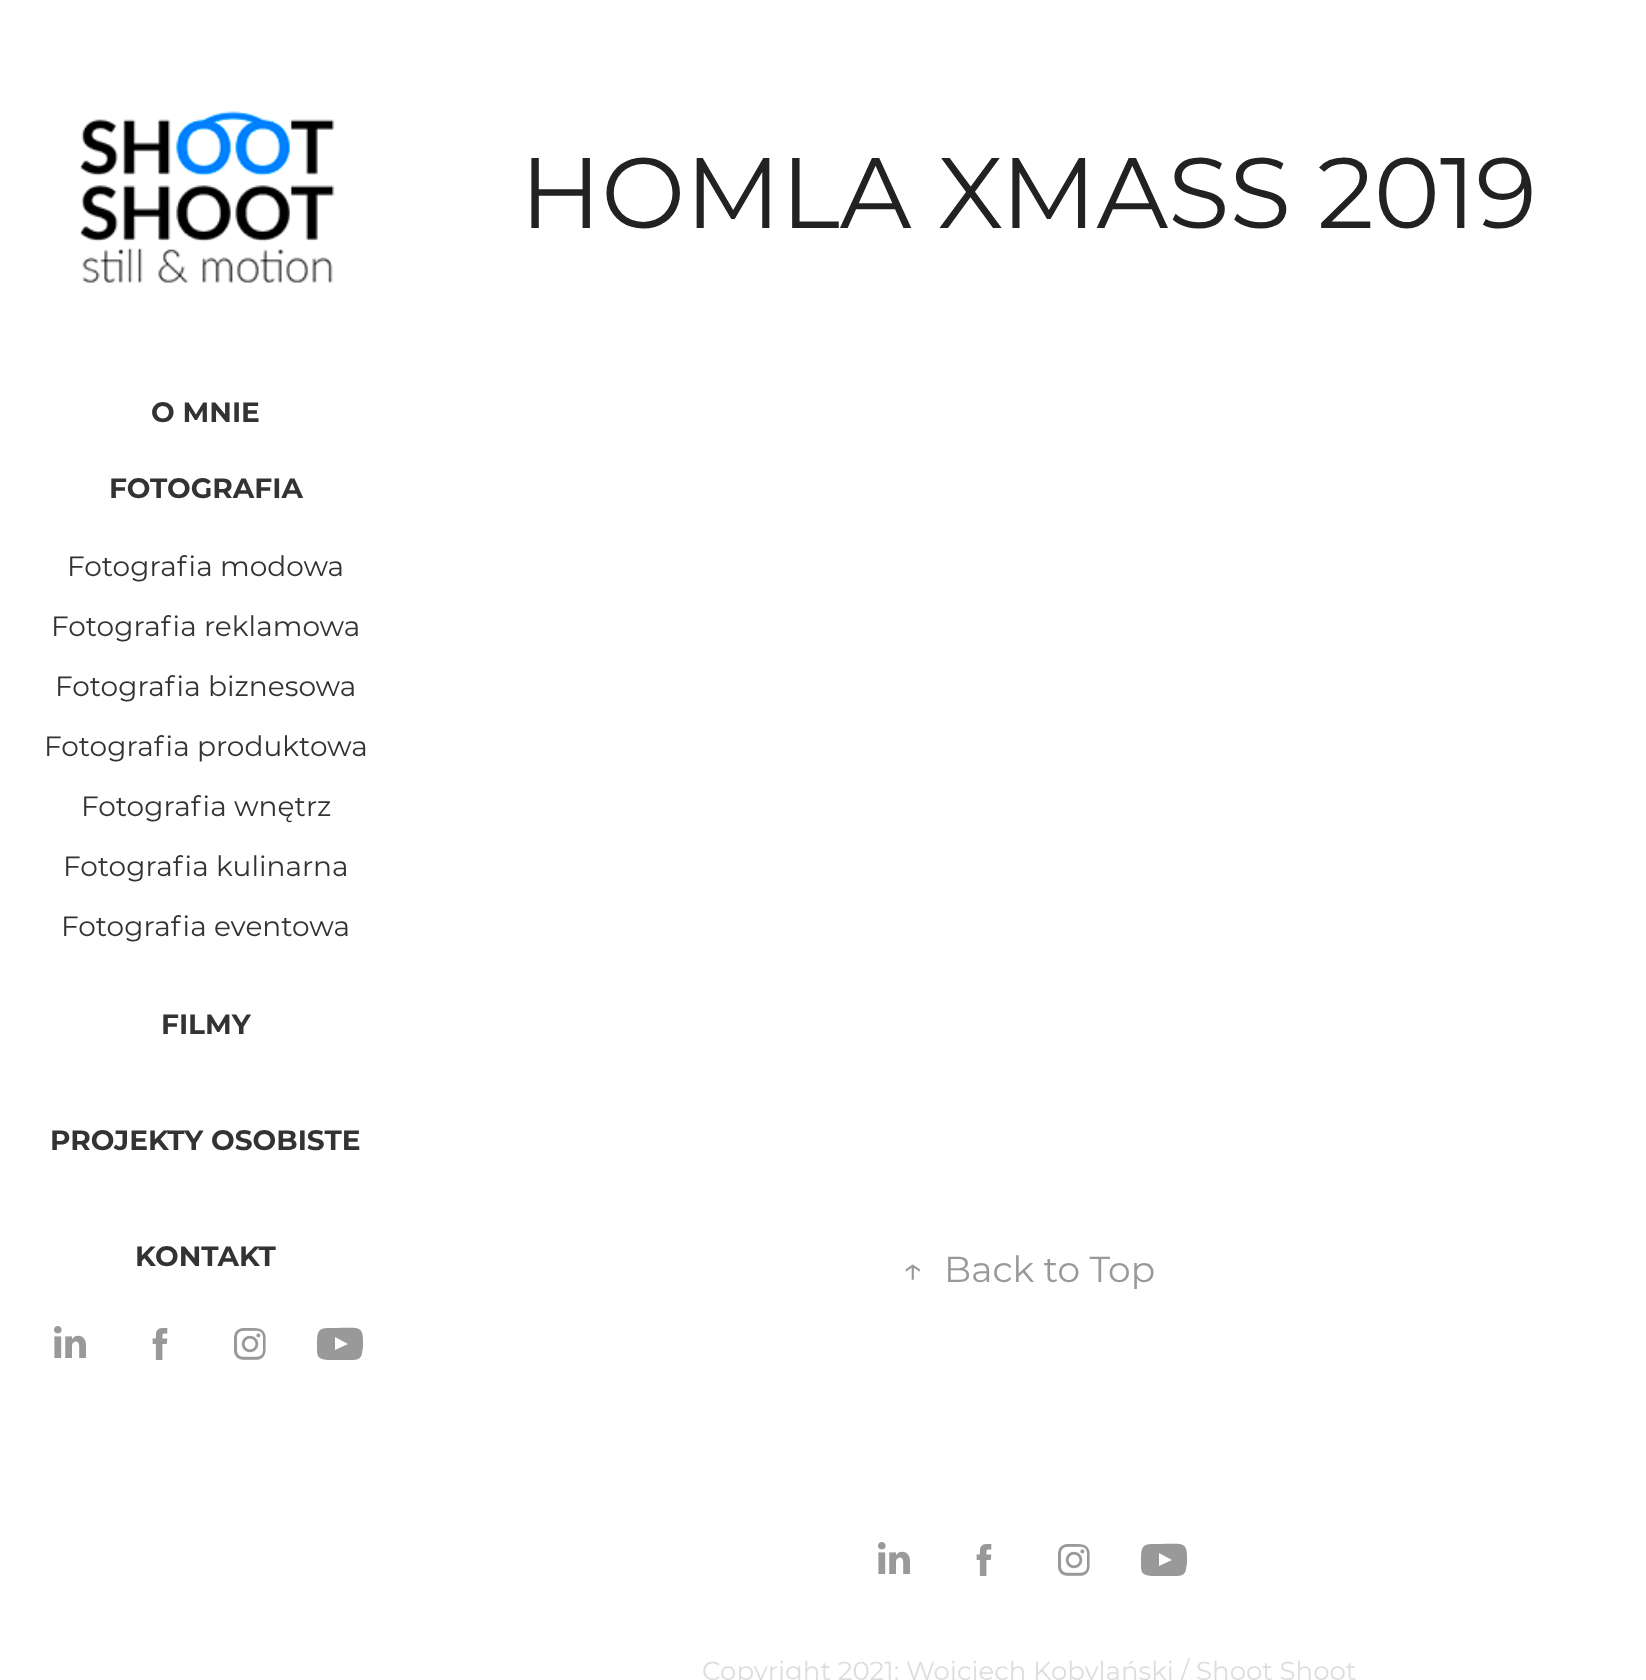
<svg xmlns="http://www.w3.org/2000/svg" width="1646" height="1680">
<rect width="100%" height="100%" fill="#fff"/>
<image x="79" y="111" width="256" height="172" href="media/1.png"/>
<text x="151" y="422" style="font-family:Montserrat;font-size:28px;font-weight:bold;fill:#333">O MNIE</text>
<text x="109" y="498" style="font-family:Montserrat;font-size:28px;font-weight:bold;fill:#333">FOTOGRAFIA</text>
<text x="67" y="576" style="font-family:Montserrat;font-size:28px;fill:#333">Fotografia modowa</text>
<text x="51" y="636" style="font-family:Montserrat;font-size:28px;fill:#333">Fotografia reklamowa</text>
<text x="55" y="696" style="font-family:Montserrat;font-size:28px;fill:#333">Fotografia biznesowa</text>
<text x="44" y="756" style="font-family:Montserrat;font-size:28px;fill:#333">Fotografia produktowa</text>
<text x="81" y="816" style="font-family:Montserrat;font-size:28px;fill:#333">Fotografia wnętrz</text>
<text x="63" y="876" style="font-family:Montserrat;font-size:28px;fill:#333">Fotografia kulinarna</text>
<text x="61" y="936" style="font-family:Montserrat;font-size:28px;fill:#333">Fotografia eventowa</text>
<text x="161" y="1034" style="font-family:Montserrat;font-size:28px;font-weight:bold;fill:#333">FILMY</text>
<text x="50" y="1150" style="font-family:Montserrat;font-size:28px;font-weight:bold;fill:#333">PROJEKTY OSOBISTE</text>
<text x="135" y="1266" style="font-family:Montserrat;font-size:28px;font-weight:bold;fill:#333">KONTAKT</text>
<image x="54" y="1326" width="32" height="32" href="media/2.png"/>
<image x="152" y="1328" width="16" height="32" href="media/3.png"/>
<image x="234" y="1328" width="32" height="32" href="media/4.png"/>
<path d="M362 1353c-1 8-8 7-14 7h-20c-12-1-11-5-11-16c0-18 4-16 21-16c22 0 26-3 25 19zm-27-16v13l13-6z" fill="#999"/>
<text x="520" y="228" style="font-family:Montserrat;font-size:100px;fill:#222">HOMLA XMASS 2019</text>
<text x="902" y="1282" style="font-family:Montserrat;font-size:36px;fill:#999">↑</text>
<text x="944" y="1282" style="font-family:Montserrat;font-size:36px;fill:#999">Back to Top</text>
<image x="878" y="1542" width="32" height="32" href="media/2.png"/>
<image x="976" y="1544" width="16" height="32" href="media/3.png"/>
<image x="1058" y="1544" width="32" height="32" href="media/4.png"/>
<path d="M1186 1569c-1 8-8 7-14 7h-20c-12-1-11-5-11-16c0-18 4-16 21-16c22 0 26-3 25 19zm-27-16v13l13-6z" fill="#999"/>
<text x="702" y="1680" style="font-family:Montserrat;font-size:26px;fill:#ddd">Copyright 2021: Wojciech Kobylański / Shoot Shoot</text>
</svg>
